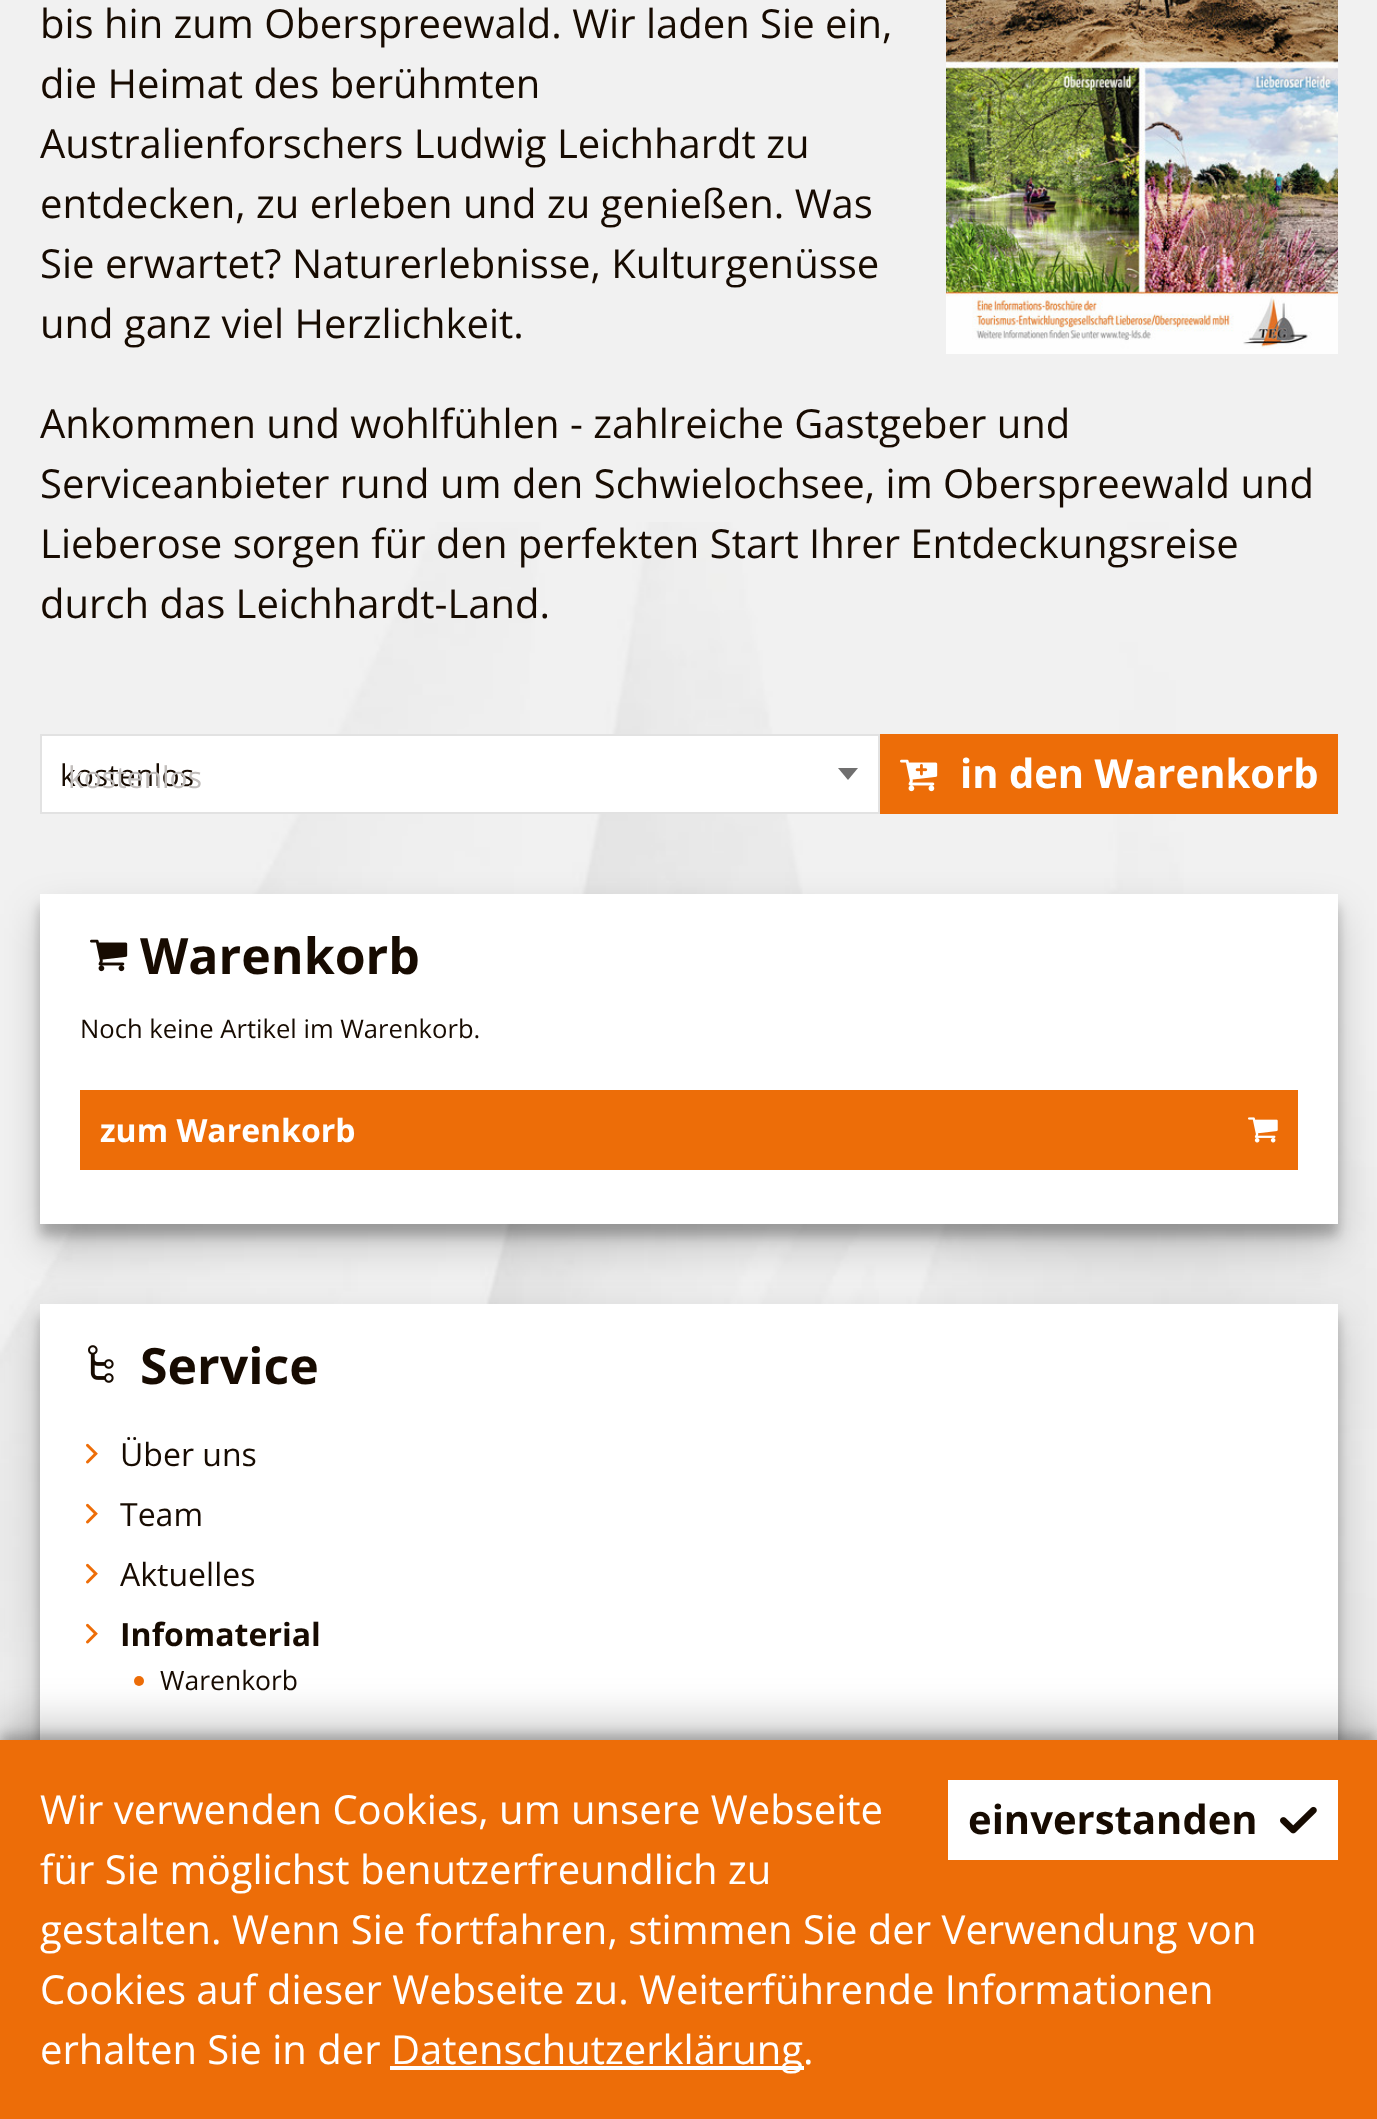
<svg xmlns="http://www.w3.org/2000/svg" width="1377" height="2119">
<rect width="100%" height="100%" fill="#f1f1f1"/>
<image x="0" y="522" width="1377" height="1218" href="media/1.png"/>
<image x="946" y="0" width="392" height="354" href="media/2.png"/>
<text x="40" y="38" style="font-family:Open Sans;font-size:40px;fill:#170b01">bis hin zum Oberspreewald. Wir laden Sie ein,</text>
<text x="40" y="98" style="font-family:Open Sans;font-size:40px;fill:#170b01">die Heimat des berühmten</text>
<text x="40" y="158" style="font-family:Open Sans;font-size:40px;fill:#170b01">Australienforschers Ludwig Leichhardt zu</text>
<text x="40" y="218" style="font-family:Open Sans;font-size:40px;fill:#170b01">entdecken, zu erleben und zu genießen. Was</text>
<text x="40" y="278" style="font-family:Open Sans;font-size:40px;fill:#170b01">Sie erwartet? Naturerlebnisse, Kulturgenüsse</text>
<text x="40" y="338" style="font-family:Open Sans;font-size:40px;fill:#170b01">und ganz viel Herzlichkeit.</text>
<text x="40" y="438" style="font-family:Open Sans;font-size:40px;fill:#170b01">Ankommen und wohlfühlen - zahlreiche Gastgeber und</text>
<text x="40" y="498" style="font-family:Open Sans;font-size:40px;fill:#170b01">Serviceanbieter rund um den Schwielochsee, im Oberspreewald und</text>
<text x="40" y="558" style="font-family:Open Sans;font-size:40px;fill:#170b01">Lieberose sorgen für den perfekten Start Ihrer Entdeckungsreise</text>
<text x="40" y="618" style="font-family:Open Sans;font-size:40px;fill:#170b01">durch das Leichhardt-Land.</text>
<rect x="41" y="735" width="838" height="78" fill="#fff" stroke="#e2e2e2" stroke-width="2"/>
<text x="60" y="786" style="font-family:Open Sans;font-size:30px;fill:#170b01">kostenlos</text>
<path d="M838 768h20l-10 12z" fill="#706f6f"/>
<text x="68" y="788" style="font-family:Open Sans;font-size:30px;fill:#c2bebc">kostenlos</text>
<rect x="880" y="734" width="458" height="80" fill="#ed6d08"/>
<image x="900" y="759" width="38" height="33" href="media/3.png"/>
<text x="960" y="788" style="font-family:Open Sans;font-size:40px;font-weight:bold;fill:#fff">in den Warenkorb</text>
<rect x="40" y="906" width="1298" height="330" fill="#0000003b" filter="blur(6px)"/>
<rect x="40" y="914" width="1298" height="330" fill="#00000030" filter="blur(20px)"/>
<rect x="40" y="894" width="1298" height="330" fill="#fff"/>
<image x="90" y="939" width="38" height="33" href="media/4.png"/>
<text x="140" y="974" style="font-family:Open Sans;font-size:50px;font-weight:bold;fill:#170b01">Warenkorb</text>
<text x="80" y="1038" style="font-family:Open Sans;font-size:25.6px;fill:#170b01">Noch keine Artikel im Warenkorb.</text>
<rect x="80" y="1090" width="1218" height="80" fill="#ed6d08"/>
<text x="100" y="1142" style="font-family:Open Sans;font-size:32px;font-weight:bold;fill:#fff">zum Warenkorb</text>
<image x="1248" y="1117" width="30" height="26" href="media/5.png"/>
<rect x="40" y="1316" width="1298" height="452" fill="#0000003b" filter="blur(6px)"/>
<rect x="40" y="1324" width="1298" height="452" fill="#00000030" filter="blur(20px)"/>
<rect x="40" y="1304" width="1298" height="436" fill="#fff"/>
<image x="88" y="1345" width="26" height="38" href="media/6.png"/>
<text x="140" y="1384" style="font-family:Open Sans;font-size:50px;font-weight:bold;fill:#170b01">Service</text>
<image x="86" y="1443" width="12" height="21" href="media/7.png"/>
<text x="120" y="1466" style="font-family:Open Sans;font-size:32px;fill:#170b01">Über uns</text>
<image x="86" y="1503" width="12" height="21" href="media/7.png"/>
<text x="120" y="1526" style="font-family:Open Sans;font-size:32px;fill:#170b01">Team</text>
<image x="86" y="1563" width="12" height="21" href="media/7.png"/>
<text x="120" y="1586" style="font-family:Open Sans;font-size:32px;fill:#170b01">Aktuelles</text>
<image x="86" y="1623" width="12" height="21" href="media/7.png"/>
<text x="120" y="1646" style="font-family:Open Sans;font-size:32px;font-weight:bold;fill:#170b01">Infomaterial</text>
<circle cx="139" cy="1681" r="5" fill="#ed6d08"/>
<text x="160" y="1690" style="font-family:Open Sans;font-size:26.5px;fill:#170b01">Warenkorb</text>
<rect y="1734" width="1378" height="380" fill="#0000003b" filter="blur(6px)"/>
<rect y="1720" width="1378" height="380" fill="#00000030" filter="blur(20px)"/>
<rect y="1740" width="1377" height="379" fill="#ed6d08"/>
<text x="40" y="1824" style="font-family:Open Sans;font-size:40px;fill:#fff">Wir verwenden Cookies, um unsere Webseite</text>
<rect x="948" y="1780" width="390" height="80" fill="#fff"/>
<text x="968" y="1834" style="font-family:Open Sans;font-size:40px;font-weight:bold;fill:#170b01">einverstanden</text>
<image x="1280" y="1806" width="37" height="28" href="media/8.png"/>
<text x="40" y="1884" style="font-family:Open Sans;font-size:40px;fill:#fff">für Sie möglichst benutzerfreundlich zu</text>
<text x="40" y="1944" style="font-family:Open Sans;font-size:40px;fill:#fff">gestalten. Wenn Sie fortfahren, stimmen Sie der Verwendung von</text>
<text x="40" y="2004" style="font-family:Open Sans;font-size:40px;fill:#fff">Cookies auf dieser Webseite zu. Weiterführende Informationen</text>
<text x="40" y="2064" style="font-family:Open Sans;font-size:40px;fill:#fff">erhalten Sie in der</text>
<rect x="390" y="2066" width="414" height="4" fill="#fff"/>
<text x="391" y="2064" style="font-family:Open Sans;font-size:40px;fill:#fff">Datenschutzerklärung.</text>
</svg>
